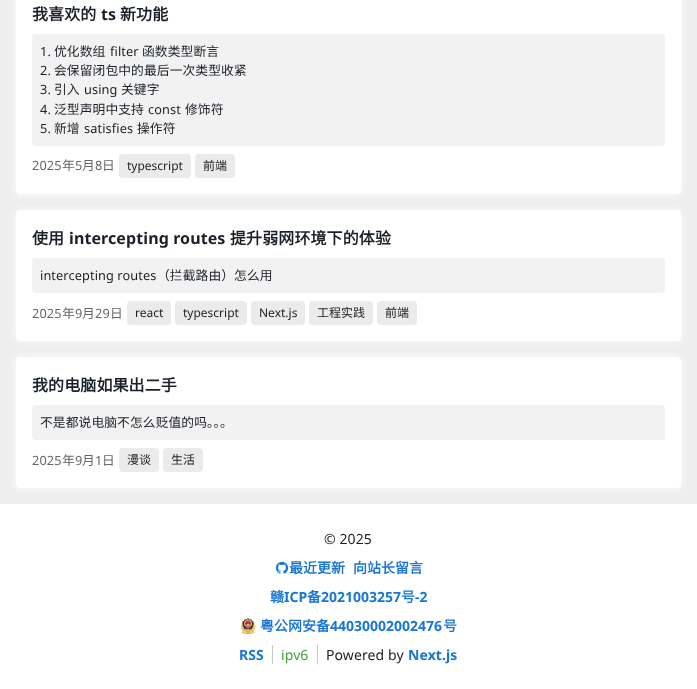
<svg xmlns="http://www.w3.org/2000/svg" width="697" height="689">
<rect width="100%" height="100%" fill="#eee"/>
<rect x="16" y="-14" width="665" height="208" rx="4" fill="#fff" filter="blur(4px)"/>
<rect x="16" y="-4" width="665" height="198" rx="4" fill="#fff"/>
<text x="32" y="20" style="font-family:Noto Sans CJK SC;font-size:16px;font-weight:bold;letter-spacing:0.1px;fill:#1a2027">我喜欢的</text>
<text x="101" y="20" style="font-family:Noto Sans;font-size:16px;font-weight:bold;letter-spacing:0.1px;fill:#1a2027">ts</text>
<text x="120" y="20" style="font-family:Noto Sans CJK SC;font-size:16px;font-weight:bold;letter-spacing:0.1px;fill:#1a2027">新功能</text>
<rect x="32" y="34" width="633" height="112" rx="4" fill="#f2f2f2"/>
<text x="40" y="56" style="font-family:Noto Sans;font-size:12.75px;letter-spacing:0.1px;fill:#1a2027">1.</text>
<text x="54" y="56" style="font-family:Noto Sans CJK SC;font-size:12.75px;letter-spacing:0.1px;fill:#1a2027">优化数组</text>
<text x="110" y="56" style="font-family:Noto Sans;font-size:12.75px;letter-spacing:0.1px;fill:#1a2027">filter</text>
<text x="142" y="56" style="font-family:Noto Sans CJK SC;font-size:12.75px;letter-spacing:0.1px;fill:#1a2027">函数类型断言</text>
<text x="40" y="75" style="font-family:Noto Sans;font-size:12.75px;letter-spacing:0.1px;fill:#1a2027">2.</text>
<text x="54" y="75" style="font-family:Noto Sans CJK SC;font-size:12.75px;letter-spacing:0.1px;fill:#1a2027">会保留闭包中的最后一次类型收紧</text>
<text x="40" y="94" style="font-family:Noto Sans;font-size:12.75px;letter-spacing:0.1px;fill:#1a2027">3.</text>
<text x="54" y="94" style="font-family:Noto Sans CJK SC;font-size:12.75px;letter-spacing:0.1px;fill:#1a2027">引入</text>
<text x="84" y="94" style="font-family:Noto Sans;font-size:12.75px;letter-spacing:0.1px;fill:#1a2027">using</text>
<text x="121" y="94" style="font-family:Noto Sans CJK SC;font-size:12.75px;letter-spacing:0.1px;fill:#1a2027">关键字</text>
<text x="40" y="114" style="font-family:Noto Sans;font-size:12.75px;letter-spacing:0.1px;fill:#1a2027">4.</text>
<text x="54" y="114" style="font-family:Noto Sans CJK SC;font-size:12.75px;letter-spacing:0.1px;fill:#1a2027">泛型声明中支持</text>
<text x="148" y="114" style="font-family:Noto Sans;font-size:12.75px;letter-spacing:0.1px;fill:#1a2027">const</text>
<text x="185" y="114" style="font-family:Noto Sans CJK SC;font-size:12.75px;letter-spacing:0.1px;fill:#1a2027">修饰符</text>
<text x="40" y="133" style="font-family:Noto Sans;font-size:12.75px;letter-spacing:0.1px;fill:#1a2027">5.</text>
<text x="54" y="133" style="font-family:Noto Sans CJK SC;font-size:12.75px;letter-spacing:0.1px;fill:#1a2027">新增</text>
<text x="84" y="133" style="font-family:Noto Sans;font-size:12.75px;letter-spacing:0.1px;fill:#1a2027">satisfies</text>
<text x="137" y="133" style="font-family:Noto Sans CJK SC;font-size:12.75px;letter-spacing:0.1px;fill:#1a2027">操作符</text>
<text x="32" y="170" style="font-family:Noto Sans;font-size:12.75px;letter-spacing:0.1px;fill:#666">2025</text>
<text x="62" y="170" style="font-family:Noto Sans CJK SC;font-size:12.75px;letter-spacing:0.1px;fill:#666">年</text>
<text x="75" y="170" style="font-family:Noto Sans;font-size:12.75px;letter-spacing:0.1px;fill:#666">5</text>
<text x="82" y="170" style="font-family:Noto Sans CJK SC;font-size:12.75px;letter-spacing:0.1px;fill:#666">月</text>
<text x="95" y="170" style="font-family:Noto Sans;font-size:12.75px;letter-spacing:0.1px;fill:#666">8</text>
<text x="102" y="170" style="font-family:Noto Sans CJK SC;font-size:12.75px;letter-spacing:0.1px;fill:#666">日</text>
<rect x="119" y="154" width="72" height="24" rx="4" fill="#ebebeb"/>
<text x="127" y="170" style="font-family:Noto Sans;font-size:12px;fill:#1f1f1f">typescript</text>
<rect x="195" y="154" width="40" height="24" rx="4" fill="#ebebeb"/>
<text x="203" y="170" style="font-family:Noto Sans CJK SC;font-size:12px;fill:#1f1f1f">前端</text>
<rect x="16" y="210" width="665" height="131" rx="4" fill="#fff" filter="blur(4px)"/>
<rect x="16" y="210" width="665" height="131" rx="4" fill="#fff"/>
<text x="32" y="244" style="font-family:Noto Sans CJK SC;font-size:16px;font-weight:bold;letter-spacing:0.1px;fill:#1a2027">使用</text>
<text x="69" y="244" style="font-family:Noto Sans;font-size:16px;font-weight:bold;letter-spacing:0.1px;fill:#1a2027">intercepting routes</text>
<text x="230" y="244" style="font-family:Noto Sans CJK SC;font-size:16px;font-weight:bold;letter-spacing:0.1px;fill:#1a2027">提升弱网环境下的体验</text>
<rect x="32" y="258" width="633" height="35" rx="4" fill="#f2f2f2"/>
<text x="40" y="280" style="font-family:Noto Sans;font-size:12.75px;letter-spacing:0.1px;fill:#1a2027">intercepting routes</text>
<text x="157" y="280" style="font-family:Noto Sans CJK SC;font-size:12.75px;letter-spacing:0.1px;fill:#1a2027">（拦截路由）怎么用</text>
<text x="32" y="318" style="font-family:Noto Sans;font-size:12.75px;letter-spacing:0.1px;fill:#666">2025</text>
<text x="62" y="318" style="font-family:Noto Sans CJK SC;font-size:12.75px;letter-spacing:0.1px;fill:#666">年</text>
<text x="75" y="318" style="font-family:Noto Sans;font-size:12.75px;letter-spacing:0.1px;fill:#666">9</text>
<text x="82" y="318" style="font-family:Noto Sans CJK SC;font-size:12.75px;letter-spacing:0.1px;fill:#666">月</text>
<text x="95" y="318" style="font-family:Noto Sans;font-size:12.75px;letter-spacing:0.1px;fill:#666">29</text>
<text x="110" y="318" style="font-family:Noto Sans CJK SC;font-size:12.75px;letter-spacing:0.1px;fill:#666">日</text>
<rect x="127" y="301" width="44" height="24" rx="4" fill="#ebebeb"/>
<text x="135" y="317" style="font-family:Noto Sans;font-size:12px;fill:#1f1f1f">react</text>
<rect x="175" y="301" width="72" height="24" rx="4" fill="#ebebeb"/>
<text x="183" y="317" style="font-family:Noto Sans;font-size:12px;fill:#1f1f1f">typescript</text>
<rect x="251" y="301" width="54" height="24" rx="4" fill="#ebebeb"/>
<text x="259" y="317" style="font-family:Noto Sans;font-size:12px;fill:#1f1f1f">Next.js</text>
<rect x="309" y="301" width="64" height="24" rx="4" fill="#ebebeb"/>
<text x="317" y="317" style="font-family:Noto Sans CJK SC;font-size:12px;fill:#1f1f1f">工程实践</text>
<rect x="377" y="301" width="40" height="24" rx="4" fill="#ebebeb"/>
<text x="385" y="317" style="font-family:Noto Sans CJK SC;font-size:12px;fill:#1f1f1f">前端</text>
<rect x="16" y="357" width="665" height="131" rx="4" fill="#fff" filter="blur(4px)"/>
<rect x="16" y="357" width="665" height="131" rx="4" fill="#fff"/>
<text x="32" y="391" style="font-family:Noto Sans CJK SC;font-size:16px;font-weight:bold;letter-spacing:0.1px;fill:#1a2027">我的电脑如果出二手</text>
<rect x="32" y="405" width="633" height="35" rx="4" fill="#f2f2f2"/>
<text x="40" y="427" style="font-family:Noto Sans CJK SC;font-size:12.75px;letter-spacing:0.1px;fill:#1a2027">不是都说电脑不怎么贬值的吗。。。</text>
<text x="32" y="465" style="font-family:Noto Sans;font-size:12.75px;letter-spacing:0.1px;fill:#666">2025</text>
<text x="62" y="465" style="font-family:Noto Sans CJK SC;font-size:12.75px;letter-spacing:0.1px;fill:#666">年</text>
<text x="75" y="465" style="font-family:Noto Sans;font-size:12.75px;letter-spacing:0.1px;fill:#666">9</text>
<text x="82" y="465" style="font-family:Noto Sans CJK SC;font-size:12.75px;letter-spacing:0.1px;fill:#666">月</text>
<text x="95" y="465" style="font-family:Noto Sans;font-size:12.75px;letter-spacing:0.1px;fill:#666">1</text>
<text x="102" y="465" style="font-family:Noto Sans CJK SC;font-size:12.75px;letter-spacing:0.1px;fill:#666">日</text>
<rect x="119" y="448" width="40" height="24" rx="4" fill="#ebebeb"/>
<text x="127" y="464" style="font-family:Noto Sans CJK SC;font-size:12px;fill:#1f1f1f">漫谈</text>
<rect x="163" y="448" width="40" height="24" rx="4" fill="#ebebeb"/>
<text x="171" y="464" style="font-family:Noto Sans CJK SC;font-size:12px;fill:#1f1f1f">生活</text>
<rect y="504" width="697" height="185" fill="#fff"/>
<text x="324" y="544" style="font-family:Noto Sans;font-size:14px;letter-spacing:0.1px;fill:#1a2027">© 2025</text>
<image x="275" y="561" width="14" height="13" href="media/1.png"/>
<text x="289" y="573" style="font-family:Noto Sans CJK SC;font-size:14px;font-weight:bold;fill:#1976d2">最近更新</text>
<text x="353" y="573" style="font-family:Noto Sans CJK SC;font-size:14px;font-weight:bold;fill:#1976d2">向站长留言</text>
<text x="270" y="602" style="font-family:Noto Sans CJK SC;font-size:14px;font-weight:bold;fill:#1976d2">赣</text>
<text x="284" y="602" style="font-family:Noto Sans;font-size:14px;font-weight:bold;fill:#1976d2">ICP</text>
<text x="307" y="602" style="font-family:Noto Sans CJK SC;font-size:14px;font-weight:bold;fill:#1976d2">备</text>
<text x="321" y="602" style="font-family:Noto Sans;font-size:14px;font-weight:bold;fill:#1976d2">2021003257</text>
<text x="401" y="602" style="font-family:Noto Sans CJK SC;font-size:14px;font-weight:bold;fill:#1976d2">号</text>
<text x="415" y="602" style="font-family:Noto Sans;font-size:14px;font-weight:bold;fill:#1976d2">-2</text>
<image x="240" y="618" width="16" height="16" href="media/2.png"/>
<text x="260" y="631" style="font-family:Noto Sans CJK SC;font-size:14px;font-weight:bold;fill:#1976d2">粤公网安备</text>
<text x="330" y="631" style="font-family:Noto Sans;font-size:14px;font-weight:bold;fill:#1976d2">44030002002476</text>
<text x="443" y="631" style="font-family:Noto Sans CJK SC;font-size:14px;font-weight:bold;fill:#1976d2">号</text>
<text x="239" y="660" style="font-family:Noto Sans;font-size:14px;font-weight:bold;letter-spacing:0.1px;fill:#1976d2">RSS</text>
<rect x="272" y="645" width="1" height="19" fill="#c6c7c9"/>
<text x="281" y="660" style="font-family:Noto Sans;font-size:14px;letter-spacing:0.1px;fill:#43a047">ipv6</text>
<rect x="317" y="645" width="1" height="19" fill="#c6c7c9"/>
<text x="326" y="660" style="font-family:Noto Sans;font-size:14px;letter-spacing:0.1px;fill:#1a2027">Powered by</text>
<text x="408" y="660" style="font-family:Noto Sans;font-size:14px;font-weight:bold;letter-spacing:0.1px;fill:#1976d2">Next.js</text>
</svg>
